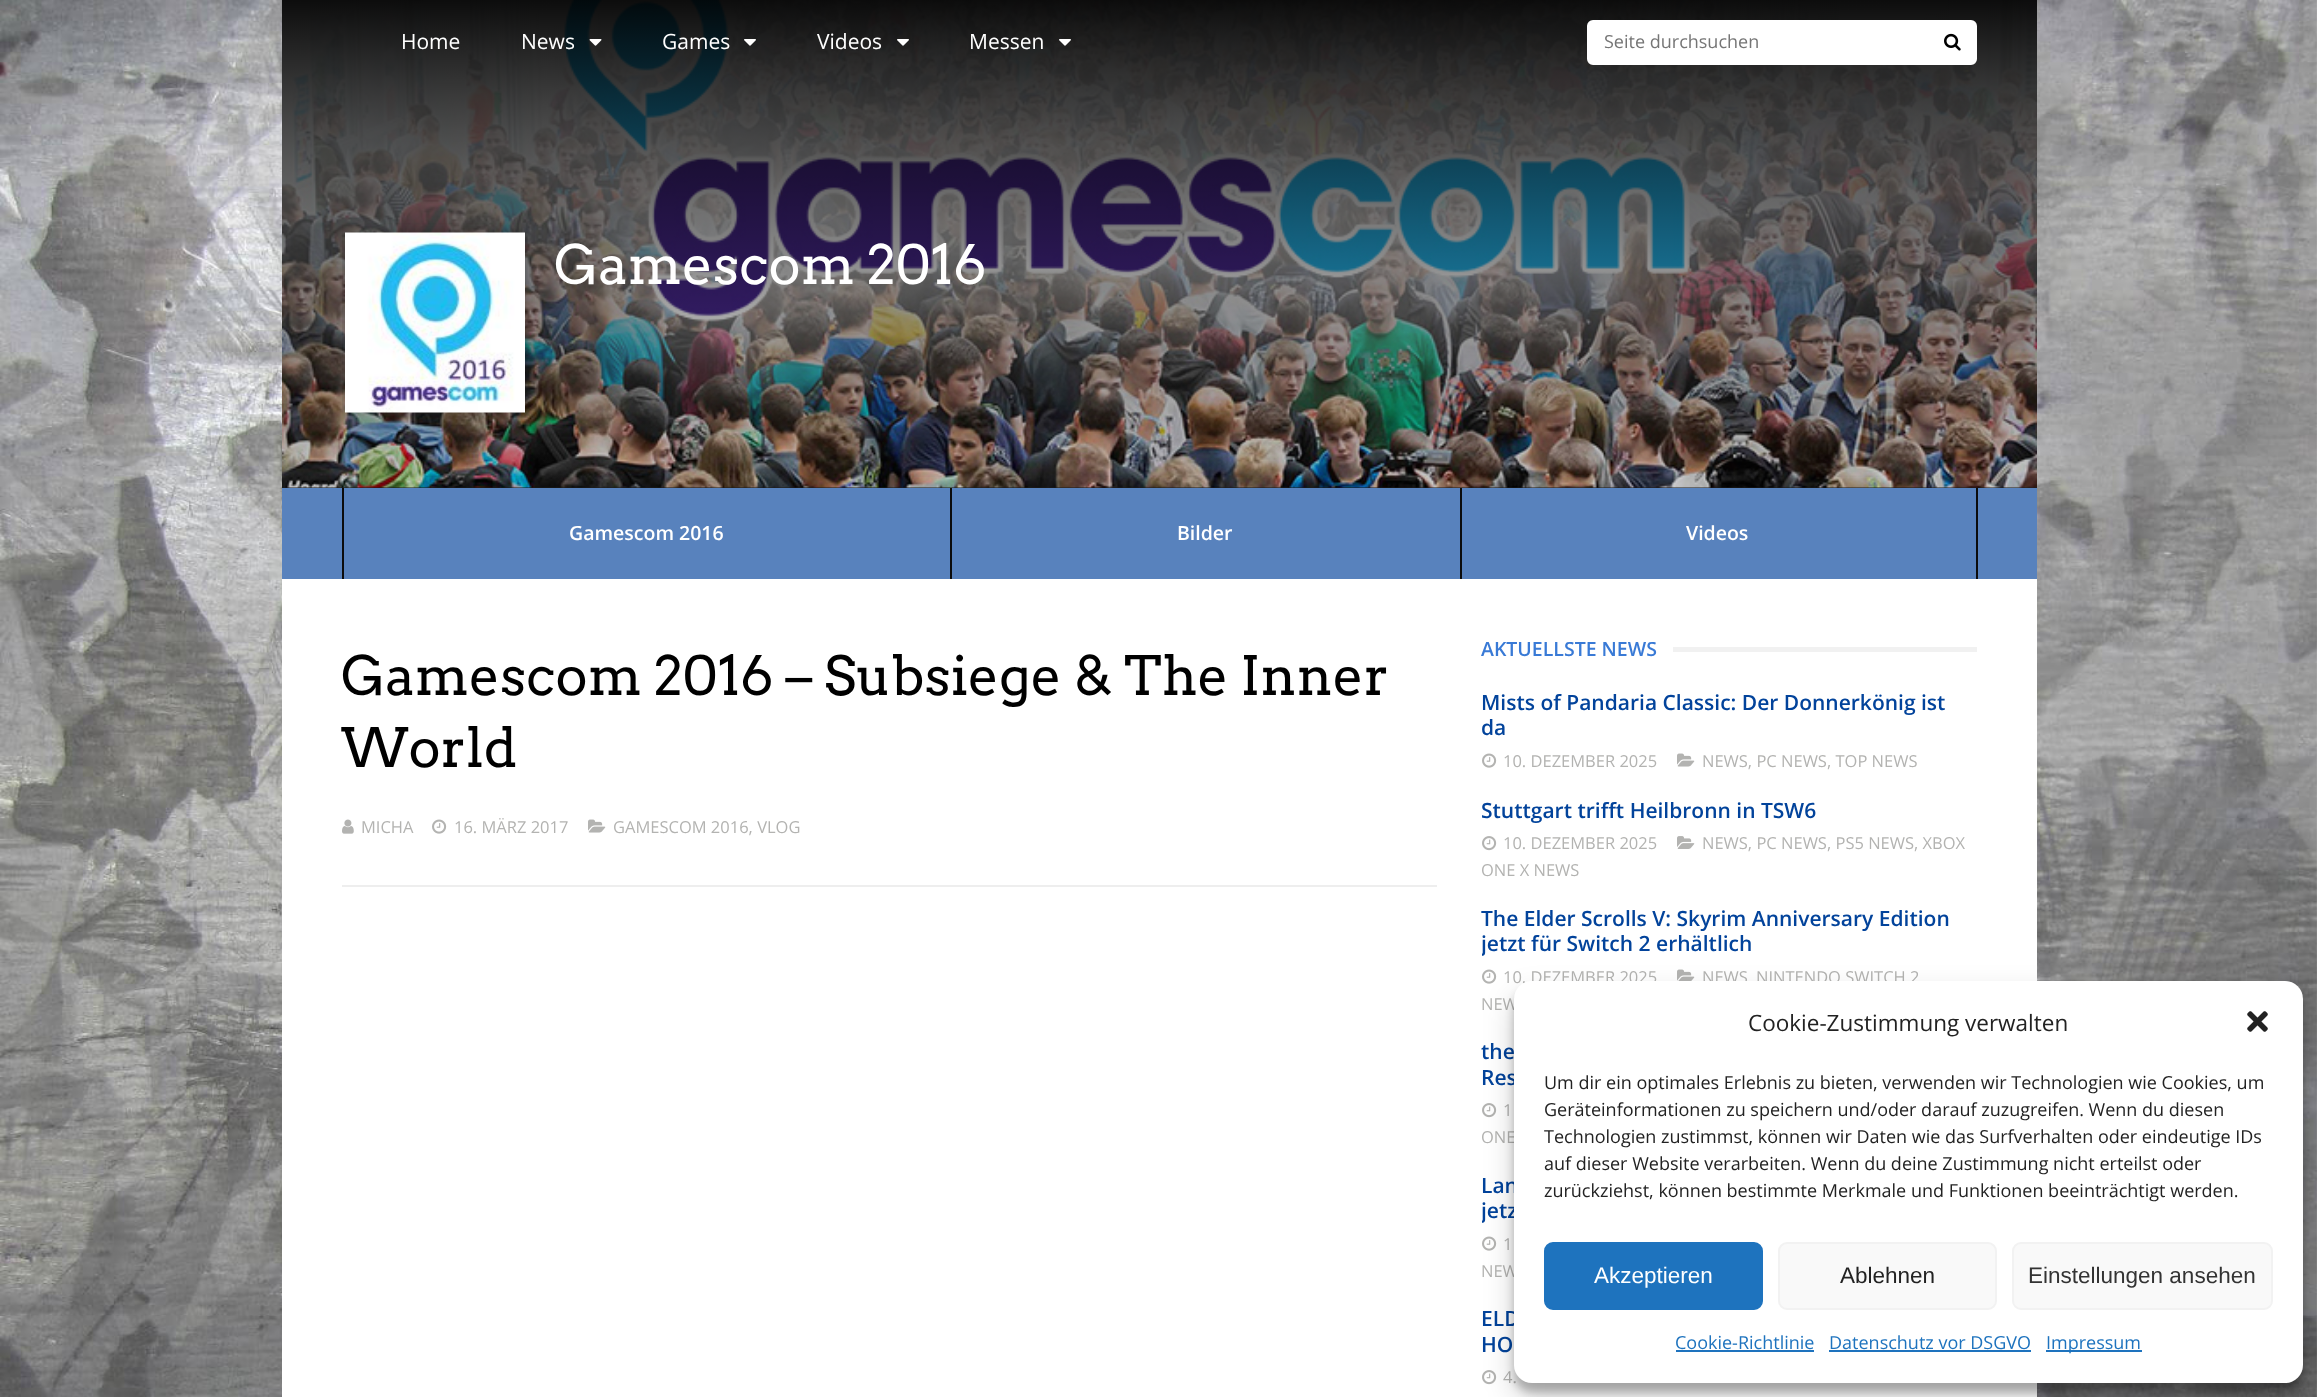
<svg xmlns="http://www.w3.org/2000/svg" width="2317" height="1397">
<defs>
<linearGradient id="g1" gradientUnits="userSpaceOnUse" x1="1160" y1="0" x2="1160" y2="488"><stop offset="0" stop-color="#000" stop-opacity="0.95"/><stop offset="1" stop-color="#000" stop-opacity="0"/></linearGradient>
<clipPath id="clip1"><rect x="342" y="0" width="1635" height="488"/></clipPath>
<clipPath id="clip2"><rect x="1482" y="905" width="495" height="111"/></clipPath>
<clipPath id="clip3"><rect x="1482" y="1172" width="495" height="111"/></clipPath>
</defs>
<rect width="100%" height="100%" fill="#fff"/>
<image x="0" y="0" width="2317" height="1397" href="media/1.png"/>
<rect x="282" y="579" width="1755" height="818" fill="#fff"/>
<rect x="282" y="487" width="1755" height="1" fill="#1c1c1c"/>
<image x="282" y="0" width="1755" height="488" href="media/7.png"/>
<rect x="282" width="1755" height="477" fill="url(#g1)"/>
<text x="401" y="49" style="font-family:Open Sans;font-size:21px;fill:#fff">Home</text>
<text x="521" y="49" style="font-family:Open Sans;font-size:21px;fill:#fff">News</text>
<image x="589" y="39" width="13" height="7" href="media/2.png"/>
<text x="662" y="49" style="font-family:Open Sans;font-size:21px;fill:#fff">Games</text>
<image x="744" y="39" width="12" height="7" href="media/3.png"/>
<text x="817" y="49" style="font-family:Open Sans;font-size:21px;fill:#fff">Videos</text>
<image x="897" y="39" width="12" height="7" href="media/4.png"/>
<text x="969" y="49" style="font-family:Open Sans;font-size:21px;fill:#fff">Messen</text>
<image x="1059" y="39" width="12" height="7" href="media/5.png"/>
<rect x="1588" y="21" width="388" height="43" rx="5" fill="#fff" stroke="#fff" stroke-width="2"/>
<text x="1604" y="48" style="font-family:Open Sans;font-size:18px;fill:#757575">Seite durchsuchen</text>
<image x="1944" y="33" width="17" height="18" href="media/6.png"/>
<g clip-path="url(#clip1)">
<rect x="345" y="233" width="180" height="180" fill="#0000004d" filter="blur(4px)"/>
</g>
<image x="345" y="232" width="180" height="181" href="media/8.png"/>
<text x="554" y="284" style="font-family:Arvo;font-size:54px;fill:#fff">Gamescom 2016</text>
<rect x="282" y="488" width="1755" height="91" fill="#5882bd"/>
<rect x="342" y="488" width="2" height="91" fill="#0c0c0c"/>
<text x="569" y="540" style="font-family:Open Sans;font-size:19.5px;font-weight:600;fill:#fff">Gamescom 2016</text>
<rect x="950" y="488" width="2" height="91" fill="#0c0c0c"/>
<text x="1177" y="540" style="font-family:Open Sans;font-size:19.5px;font-weight:600;fill:#fff">Bilder</text>
<rect x="1976" y="488" width="2" height="91" fill="#0c0c0c"/>
<rect x="1460" y="488" width="2" height="91" fill="#0c0c0c"/>
<text x="1686" y="540" style="font-family:Open Sans;font-size:19.5px;font-weight:600;fill:#fff">Videos</text>
<text x="341" y="695" style="font-family:Arvo;font-size:54px;fill:#000">Gamescom 2016 – Subsiege &amp; The Inner</text>
<text x="341" y="767" style="font-family:Arvo;font-size:54px;fill:#000">World</text>
<rect x="342" y="885" width="1095" height="2" fill="#eee"/>
<image x="342" y="819" width="12" height="15" href="media/9.png"/>
<text x="361" y="833" style="font-family:Open Sans;font-size:16.5px;fill:#b3b3b1">MICHA</text>
<image x="432" y="819" width="15" height="15" href="media/10.png"/>
<text x="454" y="833" style="font-family:Open Sans;font-size:16.5px;fill:#b3b3b1">16. MÄRZ 2017</text>
<image x="588" y="819" width="18" height="14" href="media/11.png"/>
<text x="613" y="833" style="font-family:Open Sans;font-size:16.5px;fill:#b3b3b1">GAMESCOM 2016, VLOG</text>
<text x="1481" y="656" style="font-family:Open Sans;font-size:19.5px;font-weight:600;fill:#397ad6">AKTUELLSTE NEWS</text>
<rect x="1673" y="647" width="304" height="5" fill="#f1f1f1"/>
<text x="1481" y="710" style="font-family:Open Sans;font-size:21px;font-weight:600;fill:#02439b">Mists of Pandaria Classic: Der Donnerkönig ist</text>
<text x="1481" y="735" style="font-family:Open Sans;font-size:21px;font-weight:600;fill:#02439b">da</text>
<image x="1482" y="753" width="15" height="15" href="media/10.png"/>
<text x="1503" y="767" style="font-family:Open Sans;font-size:16.5px;fill:#b3b3b1">10. DEZEMBER 2025</text>
<image x="1677" y="753" width="18" height="14" href="media/11.png"/>
<text x="1702" y="767" style="font-family:Open Sans;font-size:16.5px;fill:#b3b3b1">NEWS, PC NEWS, TOP NEWS</text>
<text x="1481" y="818" style="font-family:Open Sans;font-size:21px;font-weight:600;fill:#02439b">Stuttgart trifft Heilbronn in TSW6</text>
<image x="1482" y="836" width="15" height="15" href="media/12.png"/>
<text x="1503" y="849" style="font-family:Open Sans;font-size:16.5px;fill:#b3b3b1">10. DEZEMBER 2025</text>
<image x="1677" y="836" width="18" height="13" href="media/13.png"/>
<text x="1702" y="849" style="font-family:Open Sans;font-size:16.5px;fill:#b3b3b1">NEWS, PC NEWS, PS5 NEWS, XBOX</text>
<text x="1481" y="876" style="font-family:Open Sans;font-size:16.5px;fill:#b3b3b1">ONE X NEWS</text>
<text x="1481" y="926" style="font-family:Open Sans;font-size:21px;font-weight:600;fill:#02439b">The Elder Scrolls V: Skyrim Anniversary Edition</text>
<g clip-path="url(#clip2)">
<text x="1481" y="951" style="font-family:Open Sans;font-size:21px;font-weight:600;fill:#02439b">jetzt für Switch 2 erhältlich</text>
</g>
<image x="1482" y="969" width="15" height="15" href="media/10.png"/>
<text x="1503" y="983" style="font-family:Open Sans;font-size:16.5px;fill:#b3b3b1">10. DEZEMBER 2025</text>
<image x="1677" y="969" width="18" height="12" href="media/14.png"/>
<text x="1702" y="983" style="font-family:Open Sans;font-size:16.5px;fill:#b3b3b1">NEWS</text>
<text x="1756" y="983" style="font-family:Open Sans;font-size:16.5px;fill:#b3b3b1">NINTENDO SWITCH 2</text>
<text x="1481" y="1010" style="font-family:Open Sans;font-size:16.5px;fill:#b3b3b1">NEW</text>
<text x="1481" y="1059" style="font-family:Open Sans;font-size:21px;font-weight:600;fill:#02439b">the</text>
<text x="1481" y="1085" style="font-family:Open Sans;font-size:21px;font-weight:600;fill:#02439b">Res</text>
<image x="1482" y="1103" width="15" height="15" href="media/12.png"/>
<text x="1503" y="1116" style="font-family:Open Sans;font-size:16.5px;fill:#b3b3b1">1</text>
<text x="1481" y="1143" style="font-family:Open Sans;font-size:16.5px;fill:#b3b3b1">ONE</text>
<text x="1481" y="1193" style="font-family:Open Sans;font-size:21px;font-weight:600;fill:#02439b">Lan</text>
<g clip-path="url(#clip3)">
<text x="1481" y="1218" style="font-family:Open Sans;font-size:21px;font-weight:600;fill:#02439b">jetz</text>
</g>
<image x="1482" y="1236" width="15" height="15" href="media/10.png"/>
<text x="1503" y="1250" style="font-family:Open Sans;font-size:16.5px;fill:#b3b3b1">1</text>
<text x="1481" y="1277" style="font-family:Open Sans;font-size:16.5px;fill:#b3b3b1">NEW</text>
<text x="1481" y="1326" style="font-family:Open Sans;font-size:21px;font-weight:600;fill:#02439b">ELD</text>
<text x="1481" y="1352" style="font-family:Open Sans;font-size:21px;font-weight:600;fill:#02439b">HO</text>
<image x="1482" y="1370" width="15" height="15" href="media/12.png"/>
<text x="1503" y="1383" style="font-family:Open Sans;font-size:16.5px;fill:#b3b3b1">4.</text>
<rect x="1514" y="990" width="789" height="402" rx="18" fill="#0000003b" filter="blur(4.5px)"/>
<rect x="1514" y="996" width="789" height="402" rx="18" fill="#00000030" filter="blur(15px)"/>
<rect x="1514" y="981" width="789" height="402" rx="18" fill="#fff"/>
<text x="1748" y="1031" style="font-family:Open Sans;font-size:22.5px;fill:#222">Cookie-Zustimmung verwalten</text>
<image x="2247" y="1011" width="21" height="21" href="media/15.png"/>
<text x="1544" y="1089" style="font-family:Open Sans;font-size:18px;fill:#222">Um dir ein optimales Erlebnis zu bieten, verwenden wir Technologien wie Cookies, um</text>
<text x="1544" y="1116" style="font-family:Open Sans;font-size:18px;fill:#222">Geräteinformationen zu speichern und/oder darauf zuzugreifen. Wenn du diesen</text>
<text x="1544" y="1143" style="font-family:Open Sans;font-size:18px;fill:#222">Technologien zustimmst, können wir Daten wie das Surfverhalten oder eindeutige IDs</text>
<text x="1544" y="1170" style="font-family:Open Sans;font-size:18px;fill:#222">auf dieser Website verarbeiten. Wenn du deine Zustimmung nicht erteilst oder</text>
<text x="1544" y="1197" style="font-family:Open Sans;font-size:18px;fill:#222">zurückziehst, können bestimmte Merkmale und Funktionen beeinträchtigt werden.</text>
<rect x="1545" y="1243" width="217" height="66" rx="8" fill="#1e73be" stroke="#1e73be" stroke-width="2"/>
<text x="1594" y="1283" style="font-family:Liberation Sans;font-size:22.5px;fill:#fff">Akzeptieren</text>
<rect x="1779" y="1243" width="217" height="66" rx="8" fill="#f9f9f9" stroke="#f2f2f2" stroke-width="2"/>
<text x="1840" y="1283" style="font-family:Liberation Sans;font-size:22.5px;fill:#222">Ablehnen</text>
<rect x="2013" y="1243" width="259" height="66" rx="8" fill="#f9f9f9" stroke="#f2f2f2" stroke-width="2"/>
<text x="2028" y="1283" style="font-family:Liberation Sans;font-size:22.5px;fill:#333">Einstellungen ansehen</text>
<text x="1675" y="1349" style="font-family:Open Sans;font-size:18px;fill:#1e73be">Cookie-Richtlinie</text>
<rect x="1676" y="1350" width="138" height="2" fill="#1e73be"/>
<text x="1829" y="1349" style="font-family:Open Sans;font-size:18px;fill:#1e73be">Datenschutz vor DSGVO</text>
<rect x="1829" y="1350" width="202" height="2" fill="#1e73be"/>
<rect x="2046" y="1350" width="96" height="2" fill="#1e73be"/>
<text x="2046" y="1349" style="font-family:Open Sans;font-size:18px;fill:#1e73be">Impressum</text>
</svg>
